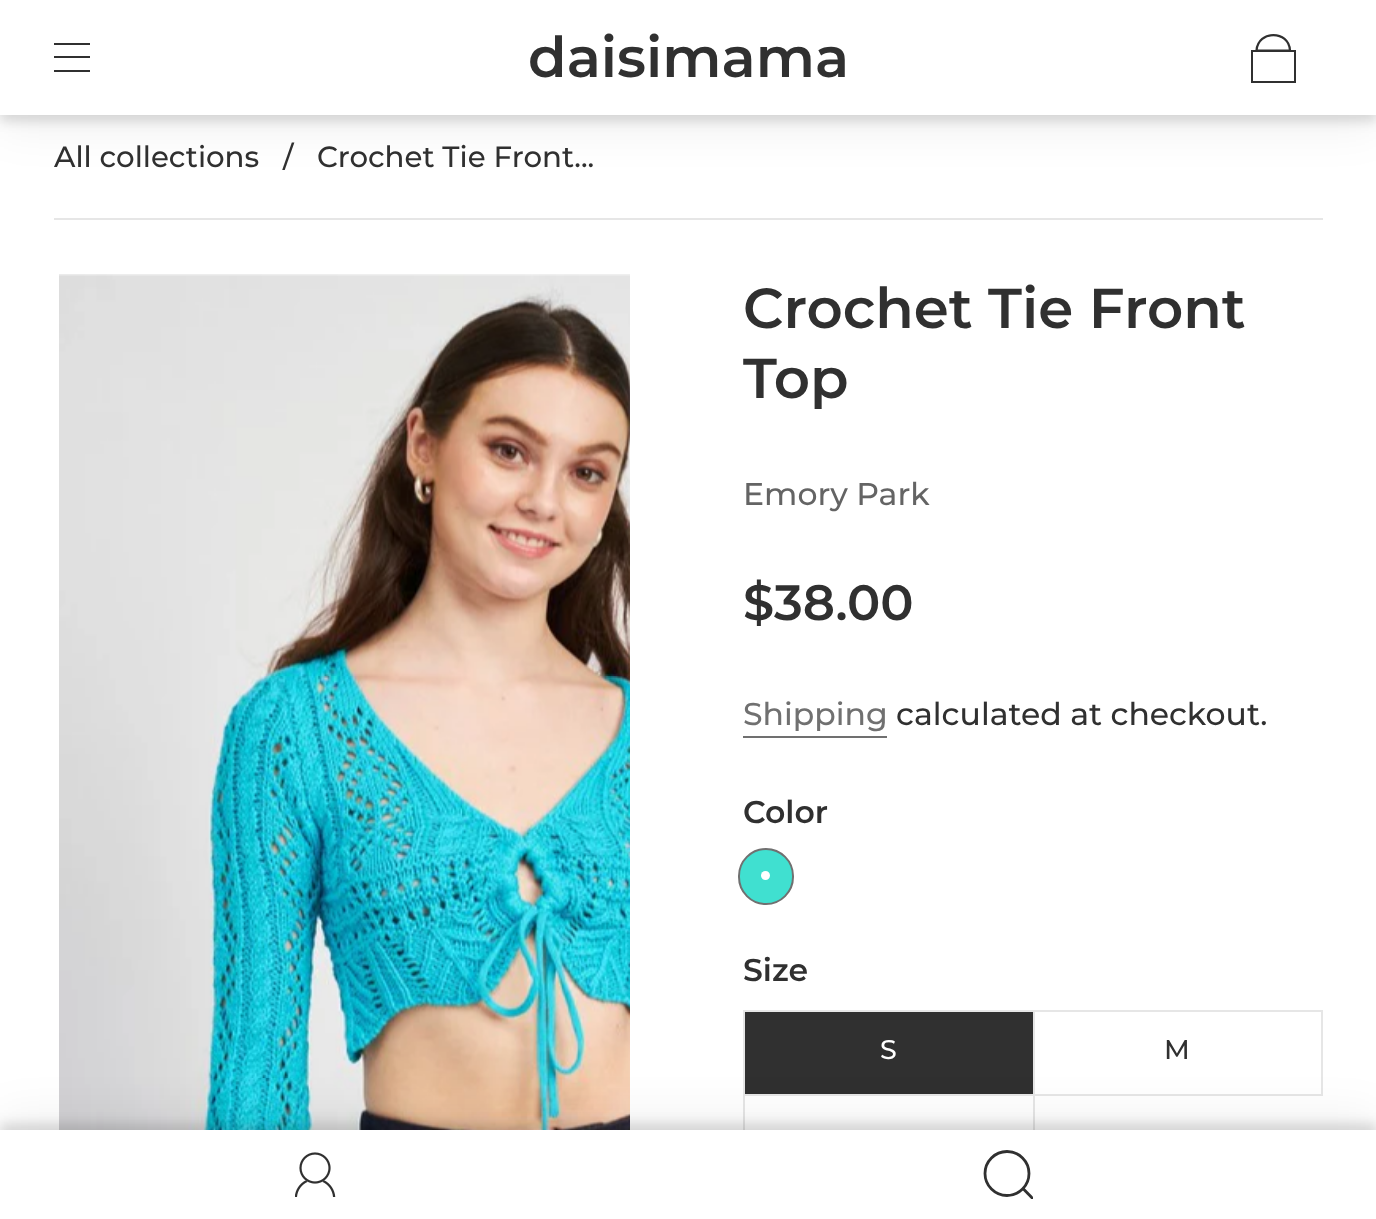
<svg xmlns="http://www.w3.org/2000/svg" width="1376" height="1219">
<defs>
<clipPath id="clip1"><rect x="983" y="1150" width="50" height="49"/></clipPath>
</defs>
<rect width="100%" height="100%" fill="#fff"/>
<rect y="14" width="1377" height="114" fill="#0000000f" filter="blur(22.5px)"/>
<rect y="7" width="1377" height="115" fill="#0000001f" filter="blur(5.5px)"/>
<rect width="1376" height="115" fill="#fff"/>
<rect x="54" y="43" width="36" height="2" fill="#303030"/>
<rect x="54" y="56" width="36" height="2" fill="#303030"/>
<rect x="54" y="70" width="36" height="2" fill="#303030"/>
<text x="528" y="77" style="font-family:Montserrat;font-size:56.25px;font-weight:600;fill:#303030">daisimama</text>
<path d="M1256.5 50.5c1.5-20.5 32.5-20.5 33.5 0z" fill="none" stroke="#303030" stroke-width="2.2"/>
<rect x="1252" y="51" width="43" height="31" fill="none" stroke="#303030" stroke-width="2"/>
<rect x="54" y="218" width="1269" height="2" fill="#e6e6e6"/>
<text x="54" y="167" style="font-family:Montserrat;font-size:29.25px;font-weight:500;fill:#303030">All collections</text>
<text x="283" y="167" style="font-family:Montserrat;font-size:29.25px;font-weight:500;fill:#303030">/</text>
<text x="317" y="167" style="font-family:Montserrat;font-size:29.25px;font-weight:500;fill:#303030">Crochet Tie Front...</text>
<image x="59" y="274" width="571" height="856" href="media/1.png"/>
<text x="743" y="328" style="font-family:Montserrat;font-size:56.25px;font-weight:600;fill:#303030">Crochet Tie Front</text>
<text x="743" y="398" style="font-family:Montserrat;font-size:56.25px;font-weight:600;fill:#303030">Top</text>
<text x="743" y="505" style="font-family:Montserrat;font-size:31.5px;font-weight:500;fill:#646464">Emory Park</text>
<text x="743" y="620" style="font-family:Montserrat;font-size:49.5px;font-weight:600;fill:#303030">$38.00</text>
<text x="743" y="725" style="font-family:Montserrat;font-size:31.5px;font-weight:500;fill:#707070">Shipping</text>
<rect x="743" y="736" width="144" height="2" fill="#707070"/>
<text x="896" y="725" style="font-family:Montserrat;font-size:31.5px;font-weight:500;fill:#303030">calculated at checkout.</text>
<text x="743" y="823" style="font-family:Montserrat;font-size:31.5px;font-weight:600;fill:#303030">Color</text>
<rect x="739" y="849" width="54" height="55" rx="27" fill="#40e0d0" stroke="#707070" stroke-width="2"/>
<circle cx="765.5" cy="875.5" r="4.5" fill="#fff"/>
<text x="743" y="981" style="font-family:Montserrat;font-size:31.5px;font-weight:600;fill:#303030">Size</text>
<rect x="743" y="1010" width="2" height="120" fill="#e6e6e6"/>
<rect x="745" y="1012" width="288" height="82" fill="#303030"/>
<rect x="745" y="1010" width="578" height="2" fill="#e6e6e6"/>
<rect x="1033" y="1010" width="2" height="86" fill="#e6e6e6"/>
<rect x="745" y="1094" width="290" height="2" fill="#e6e6e6"/>
<text x="880" y="1059" style="font-family:Montserrat;font-size:27px;font-weight:500;fill:#fff">S</text>
<rect x="1321" y="1010" width="2" height="86" fill="#e6e6e6"/>
<rect x="1035" y="1094" width="288" height="2" fill="#e6e6e6"/>
<text x="1164" y="1059" style="font-family:Montserrat;font-size:27px;font-weight:500;fill:#303030">M</text>
<rect x="1033" y="1094" width="2" height="36" fill="#e6e6e6"/>
<rect y="1116" width="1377" height="90" fill="#0000000f" filter="blur(22.5px)"/>
<rect y="1123" width="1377" height="90" fill="#0000001f" filter="blur(5.5px)"/>
<rect y="1130" width="1376" height="89" fill="#fff"/>
<image x="295" y="1152" width="41" height="45" href="media/2.png"/>
<circle cx="1007" cy="1173.5" r="22" fill="none" stroke="#303030" stroke-width="2.8"/>
<g clip-path="url(#clip1)">
<path d="M1022.5 1188l15.5 16" fill="none" stroke="#303030" stroke-width="2.8"/>
</g>
</svg>
